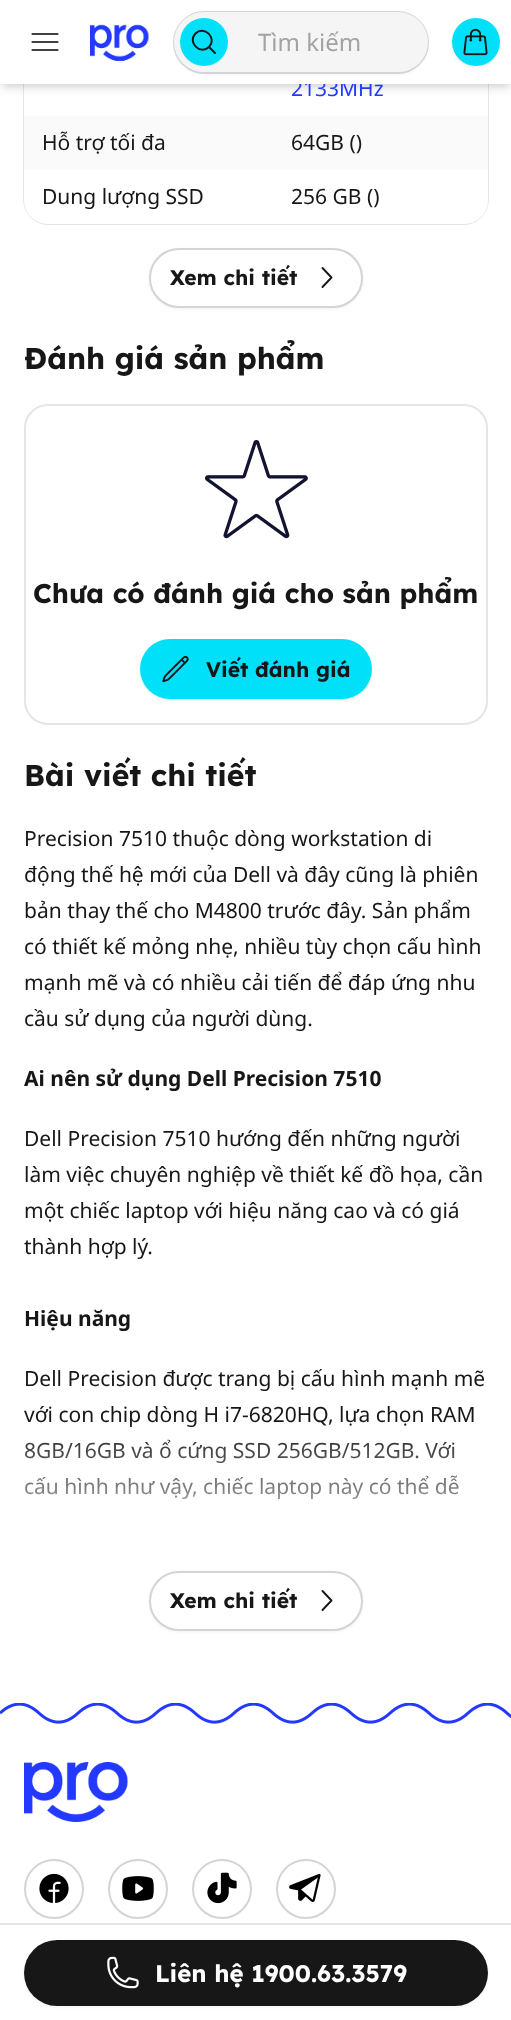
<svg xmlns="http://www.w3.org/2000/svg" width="511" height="2020">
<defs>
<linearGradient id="g1" gradientUnits="userSpaceOnUse" x1="256" y1="1571" x2="256" y2="1421"><stop offset="0" stop-color="#fff"/><stop offset="1" stop-color="#fff" stop-opacity="0"/></linearGradient>
</defs>
<rect width="100%" height="100%" fill="#fff"/>
<rect x="24" y="-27" width="464" height="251" rx="25" fill="none" stroke="#e5e5e5" stroke-width="2"/>
<rect x="24" y="-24" width="464" height="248" rx="24" fill="#fff"/>
<rect x="3" y="6" width="506" height="78" fill="#0000001a" filter="blur(3px)"/>
<rect x="2" y="8" width="508" height="81" fill="#0000001a" filter="blur(4.5px)"/>
<text x="291" y="96" style="font-family:Noto Sans;font-size:21px;fill:#2339ff">2133MHz</text>
<rect width="511" height="84" fill="#fff"/>
<path d="M32.5 34h25m-25 8h25m-25 8h25" fill="none" stroke="#404040" stroke-width="2.2" stroke-linecap="round" stroke-linejoin="round"/>
<image x="90" y="24" width="59" height="37" href="media/1.png"/>
<rect x="174" y="14" width="254" height="60" rx="30" fill="#0000000d" filter="blur(1.5px)"/>
<rect x="174" y="12" width="254" height="61" rx="30.5" fill="none" stroke="#d4d4d4" stroke-width="2"/>
<rect x="174" y="12" width="254" height="60" rx="30" fill="#f5f5f5"/>
<circle cx="204" cy="42" r="24" fill="#00e1f9"/>
<path d="M215 53l-6-6m0 0c8.5-9-5-22-13.5-13.5c-8.5 8.5 4.5 22 13.5 13.5" fill="none" stroke="#171717" stroke-width="1.9" stroke-linecap="round" stroke-linejoin="round"/>
<text x="258" y="51" style="font-family:Noto Sans;font-size:24px;fill:#a3a3a3">Tìm kiếm</text>
<rect x="452" y="20" width="48" height="48" rx="24" fill="#0000000d" filter="blur(1.5px)"/>
<circle cx="476" cy="42" r="24" fill="#00e1f9"/>
<image x="463" y="28" width="25" height="28" href="media/2.png"/>
<rect x="24" y="116" width="464" height="54" fill="#fafafa"/>
<text x="42" y="150" style="font-family:Noto Sans;font-size:21px;fill:#171717">Hỗ trợ tối đa</text>
<text x="291" y="150" style="font-family:Noto Sans;font-size:21px;fill:#171717">64GB ()</text>
<text x="42" y="204" style="font-family:Noto Sans;font-size:21px;fill:#171717">Dung lượng SSD</text>
<text x="291" y="204" style="font-family:Noto Sans;font-size:21px;fill:#171717">256 GB ()</text>
<rect x="149" y="249" width="214" height="60" rx="30" fill="#0000000d" filter="blur(1.5px)"/>
<rect x="150" y="249" width="212" height="58" rx="29" fill="#fff" stroke="#d4d4d4" stroke-width="2"/>
<text x="170" y="285" style="font-family:Lexend;font-size:21px;font-weight:bold;fill:#171717">Xem chi tiết</text>
<path d="M322.5 268l9 9.5l-9 9.5" fill="none" stroke="#171717" stroke-width="1.9" stroke-linecap="round" stroke-linejoin="round"/>
<text x="24" y="369" style="font-family:Lexend;font-size:30px;font-weight:bold;fill:#171717">Đánh giá sản phẩm</text>
<rect x="25" y="405" width="462" height="319" rx="23" fill="none" stroke="#e5e5e5" stroke-width="2"/>
<image x="205" y="439" width="103" height="100" href="media/3.png"/>
<text x="33" y="603" style="font-family:Lexend;font-size:27px;font-weight:bold;fill:#171717">Chưa có đánh giá cho sản phẩm</text>
<rect x="140" y="641" width="232" height="60" rx="30" fill="#0000000d" filter="blur(1.5px)"/>
<rect x="140" y="639" width="232" height="60" rx="30" fill="#00e1f9"/>
<image x="162" y="655" width="27" height="28" href="media/4.png"/>
<text x="206" y="677" style="font-family:Lexend;font-size:21px;font-weight:bold;fill:#171717">Viết đánh giá</text>
<text x="24" y="786" style="font-family:Lexend;font-size:30px;font-weight:bold;fill:#171717">Bài viết chi tiết</text>
<text x="24" y="846" style="font-family:Noto Sans;font-size:21px;fill:#171717">Precision 7510 thuộc dòng workstation di</text>
<text x="24" y="882" style="font-family:Noto Sans;font-size:21px;fill:#171717">động thế hệ mới của Dell và đây cũng là phiên</text>
<text x="24" y="918" style="font-family:Noto Sans;font-size:21px;fill:#171717">bản thay thế cho M4800 trước đây. Sản phẩm</text>
<text x="24" y="954" style="font-family:Noto Sans;font-size:21px;fill:#171717">có thiết kế mỏng nhẹ, nhiều tùy chọn cấu hình</text>
<text x="24" y="990" style="font-family:Noto Sans;font-size:21px;fill:#171717">mạnh mẽ và có nhiều cải tiến để đáp ứng nhu</text>
<text x="24" y="1026" style="font-family:Noto Sans;font-size:21px;fill:#171717">cầu sử dụng của người dùng.</text>
<text x="24" y="1086" style="font-family:Noto Sans;font-size:21px;font-weight:bold;fill:#171717">Ai nên sử dụng Dell Precision 7510</text>
<text x="24" y="1146" style="font-family:Noto Sans;font-size:21px;fill:#171717">Dell Precision 7510 hướng đến những người</text>
<text x="24" y="1182" style="font-family:Noto Sans;font-size:21px;fill:#171717">làm việc chuyên nghiệp về thiết kế đồ họa, cần</text>
<text x="24" y="1218" style="font-family:Noto Sans;font-size:21px;fill:#171717">một chiếc laptop với hiệu năng cao và có giá</text>
<text x="24" y="1254" style="font-family:Noto Sans;font-size:21px;fill:#171717">thành hợp lý.</text>
<text x="24" y="1326" style="font-family:Noto Sans;font-size:21px;font-weight:bold;fill:#171717">Hiệu năng</text>
<text x="24" y="1386" style="font-family:Noto Sans;font-size:21px;fill:#171717">Dell Precision được trang bị cấu hình mạnh mẽ</text>
<text x="24" y="1422" style="font-family:Noto Sans;font-size:21px;fill:#171717">với con chip dòng H i7-6820HQ, lựa chọn RAM</text>
<text x="24" y="1458" style="font-family:Noto Sans;font-size:21px;fill:#171717">8GB/16GB và ổ cứng SSD 256GB/512GB. Với</text>
<text x="24" y="1494" style="font-family:Noto Sans;font-size:21px;fill:#171717">cấu hình như vậy, chiếc laptop này có thể dễ</text>
<rect x="25" y="1424" width="434" height="76" fill="url(#g1)"/>
<rect x="149" y="1572" width="214" height="60" rx="30" fill="#0000000d" filter="blur(1.5px)"/>
<rect x="150" y="1572" width="212" height="58" rx="29" fill="#fff" stroke="#d4d4d4" stroke-width="2"/>
<text x="170" y="1608" style="font-family:Lexend;font-size:21px;font-weight:bold;fill:#171717">Xem chi tiết</text>
<path d="M322.5 1591l9 9.5l-9 9.5" fill="none" stroke="#171717" stroke-width="1.9" stroke-linecap="round" stroke-linejoin="round"/>
<rect y="1923" width="511" height="2" fill="#e5e5e5"/>
<rect x="24" y="1941" width="464" height="66" rx="33" fill="#0000000d" filter="blur(1.5px)"/>
<rect x="24" y="1940" width="464" height="66" rx="33" fill="#171717"/>
<image x="107" y="1956" width="32" height="33" href="media/5.png"/>
<text x="155" y="1982" style="font-family:Lexend;font-size:24px;font-weight:bold;fill:#fff">Liên hệ 1900.63.3579</text>
<image x="0" y="1703" width="511" height="21" href="media/6.png"/>
<image x="24" y="1762" width="104" height="60" href="media/7.png"/>
<circle cx="54" cy="1889" r="29" fill="none" stroke="#d4d4d4" stroke-width="2"/>
<image x="39" y="1873" width="30" height="30" href="media/8.png"/>
<circle cx="138" cy="1889" r="29" fill="none" stroke="#d4d4d4" stroke-width="2"/>
<image x="122" y="1876" width="32" height="25" href="media/9.png"/>
<circle cx="222" cy="1889" r="29" fill="none" stroke="#d4d4d4" stroke-width="2"/>
<image x="207" y="1872" width="30" height="32" href="media/10.png"/>
<circle cx="306" cy="1889" r="29" fill="none" stroke="#d4d4d4" stroke-width="2"/>
<image x="289" y="1873" width="32" height="29" href="media/11.png"/>
</svg>
